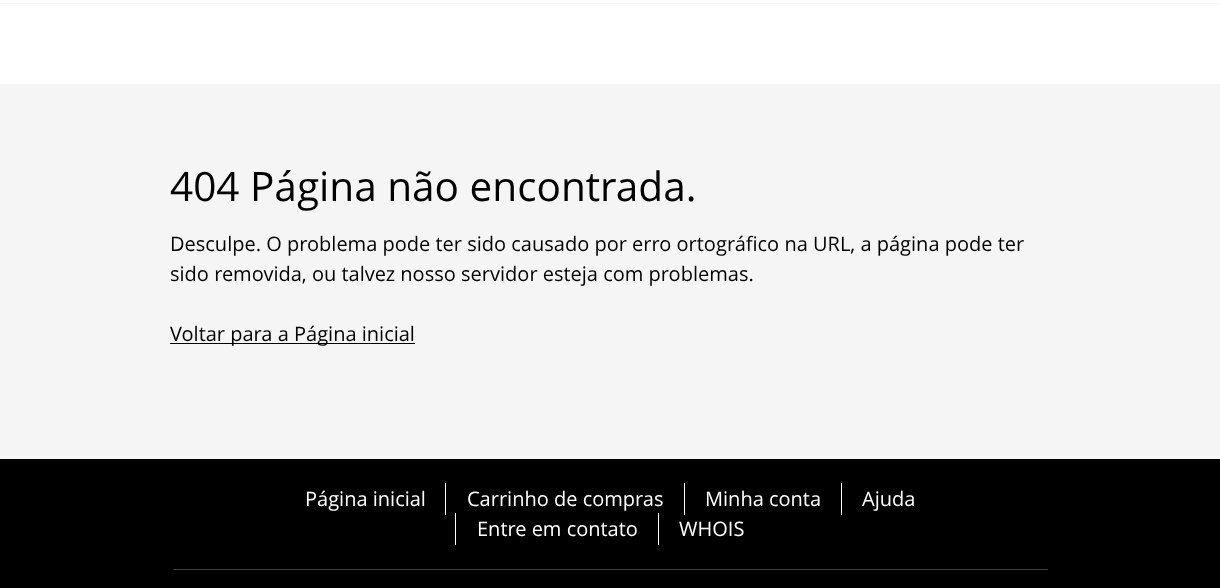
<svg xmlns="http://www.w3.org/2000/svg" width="1220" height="588">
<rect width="100%" height="100%" fill="#f5f5f5"/>
<rect width="1220" height="3" fill="#fff"/>
<rect y="4" width="1220" height="80" fill="#fff"/>
<text x="170" y="201" style="font-family:Open Sans;font-size:40.5px;fill:#000">404 Página não encontrada.</text>
<text x="170" y="251" style="font-family:Open Sans;font-size:20px;fill:#000">Desculpe. O problema pode ter sido causado por erro ortográfico na URL, a página pode ter</text>
<text x="170" y="281" style="font-family:Open Sans;font-size:20px;fill:#000">sido removida, ou talvez nosso servidor esteja com problemas.</text>
<rect x="170" y="343" width="245" height="1" fill="#000"/>
<text x="170" y="341" style="font-family:Open Sans;font-size:20px;fill:#000">Voltar para a Página inicial</text>
<rect y="459" width="1220" height="129" fill="#000"/>
<rect x="173" y="569" width="875" height="1" fill="#373d41"/>
<text x="305" y="506" style="font-family:Open Sans;font-size:20px;fill:#fff">Página inicial</text>
<rect x="445" y="483" width="1" height="32" fill="#fff"/>
<text x="467" y="506" style="font-family:Open Sans;font-size:20px;fill:#fff">Carrinho de compras</text>
<rect x="684" y="483" width="1" height="32" fill="#fff"/>
<text x="705" y="506" style="font-family:Open Sans;font-size:20px;fill:#fff">Minha conta</text>
<rect x="841" y="483" width="1" height="32" fill="#fff"/>
<text x="862" y="506" style="font-family:Open Sans;font-size:20px;fill:#fff">Ajuda</text>
<rect x="455" y="513" width="1" height="32" fill="#fff"/>
<text x="477" y="536" style="font-family:Open Sans;font-size:20px;fill:#fff">Entre em contato</text>
<rect x="658" y="513" width="1" height="32" fill="#fff"/>
<text x="679" y="536" style="font-family:Open Sans;font-size:20px;fill:#fff">WHOIS</text>
</svg>
